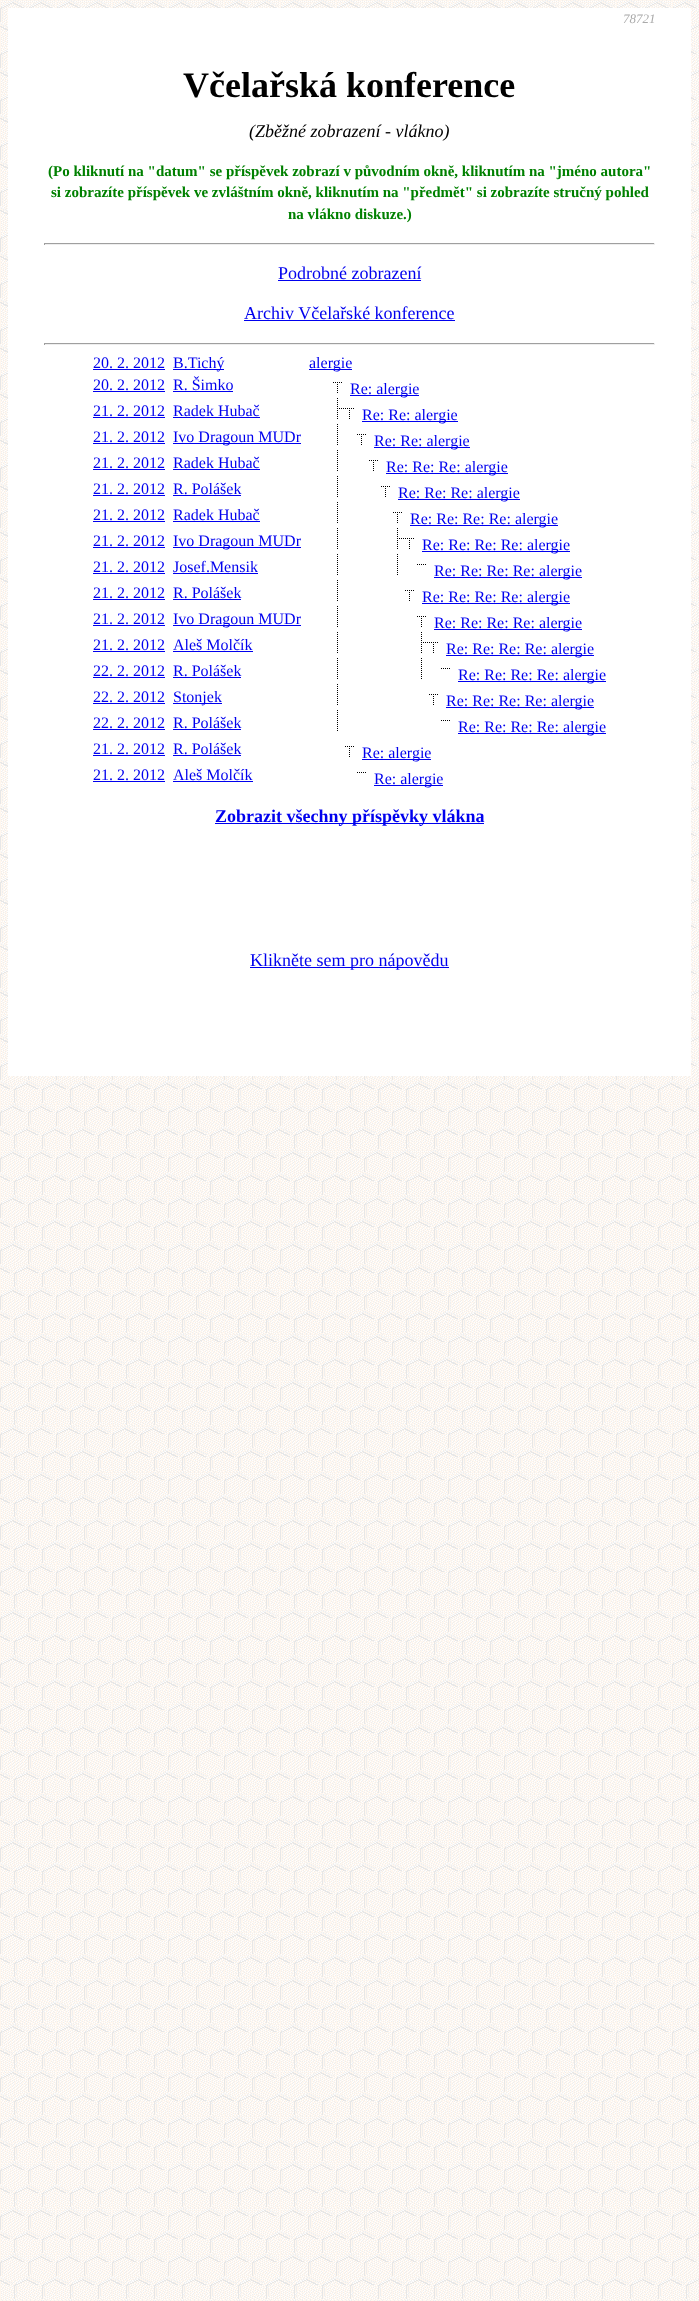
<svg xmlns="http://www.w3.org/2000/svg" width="699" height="2301">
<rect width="100%" height="100%" fill="#fff"/>
<image x="0" y="0" width="699" height="2301" href="media/1.png"/>
<rect x="8" y="8" width="683" height="1068" fill="#fff"/>
<text x="623" y="23" style="font-family:Liberation Serif;font-size:13px;font-style:italic;fill:#aaa">78721</text>
<text x="183" y="97" style="font-family:Liberation Serif;font-size:36px;font-weight:bold;fill:#000">Včelařská konference</text>
<text x="249" y="137" style="font-family:Liberation Serif;font-size:18px;font-style:italic;fill:#000">(Zběžné zobrazení - vlákno)</text>
<text x="48" y="176" style="font-family:Liberation Serif;font-size:15px;font-weight:bold;fill:#008000">(Po kliknutí na "datum" se příspěvek zobrazí v původním okně, kliknutím na "jméno autora"</text>
<text x="51" y="197" style="font-family:Liberation Serif;font-size:15px;font-weight:bold;fill:#008000">si zobrazíte příspěvek ve zvláštním okně, kliknutím na "předmět" si zobrazíte stručný pohled</text>
<text x="288" y="219" style="font-family:Liberation Serif;font-size:15px;font-weight:bold;fill:#008000">na vlákno diskuze.)</text>
<rect x="44" y="243" width="611" height="1" fill="#9f9f9f"/>
<rect x="654" y="243" width="1" height="2" fill="#eee"/>
<rect x="44" y="244" width="611" height="1" fill="#eee"/>
<rect x="44" y="243" width="1" height="2" fill="#9f9f9f"/>
<text x="278" y="279" style="font-family:Liberation Serif;font-size:18px;fill:#00e">Podrobné zobrazení</text>
<rect x="278" y="280" width="143" height="1" fill="#00e"/>
<text x="244" y="319" style="font-family:Liberation Serif;font-size:18px;fill:#00e">Archiv Včelařské konference</text>
<rect x="244" y="320" width="211" height="1" fill="#00e"/>
<rect x="44" y="343" width="611" height="1" fill="#9f9f9f"/>
<rect x="654" y="343" width="1" height="2" fill="#eee"/>
<rect x="44" y="344" width="611" height="1" fill="#eee"/>
<rect x="44" y="343" width="1" height="2" fill="#9f9f9f"/>
<text x="93" y="368" style="font-family:Liberation Serif;font-size:16px;fill:#00e">20. 2. 2012</text>
<rect x="93" y="369" width="72" height="1" fill="#00e"/>
<rect x="173" y="369" width="51" height="1" fill="#00e"/>
<text x="173" y="368" style="font-family:Liberation Serif;font-size:16px;fill:#00e">B.Tichý</text>
<rect x="309" y="369" width="43" height="1" fill="#00e"/>
<text x="309" y="368" style="font-family:Liberation Serif;font-size:16px;fill:#00e">alergie</text>
<text x="93" y="390" style="font-family:Liberation Serif;font-size:16px;fill:#00e">20. 2. 2012</text>
<rect x="93" y="391" width="72" height="1" fill="#00e"/>
<text x="173" y="390" style="font-family:Liberation Serif;font-size:16px;fill:#00e">R. Šimko</text>
<rect x="173" y="391" width="60" height="1" fill="#00e"/>
<image x="333" y="382" width="9" height="11" href="media/2.png"/>
<rect x="350" y="395" width="69" height="1" fill="#00e"/>
<text x="350" y="394" style="font-family:Liberation Serif;font-size:16px;fill:#00e">Re: alergie</text>
<text x="93" y="416" style="font-family:Liberation Serif;font-size:16px;fill:#00e">21. 2. 2012</text>
<rect x="93" y="417" width="72" height="1" fill="#00e"/>
<text x="173" y="416" style="font-family:Liberation Serif;font-size:16px;fill:#00e">Radek Hubač</text>
<rect x="173" y="417" width="87" height="1" fill="#00e"/>
<image x="337" y="398" width="7" height="21" href="media/3.png"/>
<image x="345" y="408" width="9" height="11" href="media/2.png"/>
<rect x="362" y="421" width="96" height="1" fill="#00e"/>
<text x="362" y="420" style="font-family:Liberation Serif;font-size:16px;fill:#00e">Re: Re: alergie</text>
<text x="93" y="442" style="font-family:Liberation Serif;font-size:16px;fill:#00e">21. 2. 2012</text>
<rect x="93" y="443" width="72" height="1" fill="#00e"/>
<rect x="173" y="443" width="128" height="1" fill="#00e"/>
<text x="173" y="442" style="font-family:Liberation Serif;font-size:16px;fill:#00e">Ivo Dragoun MUDr</text>
<image x="337" y="424" width="1" height="21" href="media/4.png"/>
<image x="357" y="434" width="9" height="11" href="media/2.png"/>
<rect x="374" y="447" width="96" height="1" fill="#00e"/>
<text x="374" y="446" style="font-family:Liberation Serif;font-size:16px;fill:#00e">Re: Re: alergie</text>
<text x="93" y="468" style="font-family:Liberation Serif;font-size:16px;fill:#00e">21. 2. 2012</text>
<rect x="93" y="469" width="72" height="1" fill="#00e"/>
<text x="173" y="468" style="font-family:Liberation Serif;font-size:16px;fill:#00e">Radek Hubač</text>
<rect x="173" y="469" width="87" height="1" fill="#00e"/>
<image x="337" y="450" width="1" height="21" href="media/4.png"/>
<image x="369" y="460" width="9" height="11" href="media/2.png"/>
<rect x="386" y="473" width="122" height="1" fill="#00e"/>
<text x="386" y="472" style="font-family:Liberation Serif;font-size:16px;fill:#00e">Re: Re: Re: alergie</text>
<text x="93" y="494" style="font-family:Liberation Serif;font-size:16px;fill:#00e">21. 2. 2012</text>
<rect x="93" y="495" width="72" height="1" fill="#00e"/>
<text x="173" y="494" style="font-family:Liberation Serif;font-size:16px;fill:#00e">R. Polášek</text>
<rect x="173" y="495" width="68" height="1" fill="#00e"/>
<image x="337" y="476" width="1" height="21" href="media/4.png"/>
<image x="381" y="486" width="9" height="11" href="media/2.png"/>
<rect x="398" y="499" width="122" height="1" fill="#00e"/>
<text x="398" y="498" style="font-family:Liberation Serif;font-size:16px;fill:#00e">Re: Re: Re: alergie</text>
<text x="93" y="520" style="font-family:Liberation Serif;font-size:16px;fill:#00e">21. 2. 2012</text>
<rect x="93" y="521" width="72" height="1" fill="#00e"/>
<text x="173" y="520" style="font-family:Liberation Serif;font-size:16px;fill:#00e">Radek Hubač</text>
<rect x="173" y="521" width="87" height="1" fill="#00e"/>
<image x="337" y="502" width="1" height="21" href="media/4.png"/>
<image x="393" y="512" width="9" height="11" href="media/2.png"/>
<rect x="410" y="525" width="148" height="1" fill="#00e"/>
<text x="410" y="524" style="font-family:Liberation Serif;font-size:16px;fill:#00e">Re: Re: Re: Re: alergie</text>
<text x="93" y="546" style="font-family:Liberation Serif;font-size:16px;fill:#00e">21. 2. 2012</text>
<rect x="93" y="547" width="72" height="1" fill="#00e"/>
<rect x="173" y="547" width="128" height="1" fill="#00e"/>
<text x="173" y="546" style="font-family:Liberation Serif;font-size:16px;fill:#00e">Ivo Dragoun MUDr</text>
<image x="337" y="528" width="1" height="21" href="media/4.png"/>
<image x="397" y="528" width="7" height="21" href="media/3.png"/>
<image x="405" y="538" width="9" height="11" href="media/2.png"/>
<rect x="422" y="551" width="148" height="1" fill="#00e"/>
<text x="422" y="550" style="font-family:Liberation Serif;font-size:16px;fill:#00e">Re: Re: Re: Re: alergie</text>
<text x="93" y="572" style="font-family:Liberation Serif;font-size:16px;fill:#00e">21. 2. 2012</text>
<rect x="93" y="573" width="72" height="1" fill="#00e"/>
<text x="173" y="572" style="font-family:Liberation Serif;font-size:16px;fill:#00e">Josef.Mensik</text>
<rect x="173" y="573" width="85" height="1" fill="#00e"/>
<image x="337" y="554" width="1" height="21" href="media/4.png"/>
<image x="397" y="554" width="1" height="21" href="media/4.png"/>
<image x="417" y="564" width="9" height="1" href="media/5.png"/>
<rect x="434" y="577" width="148" height="1" fill="#00e"/>
<text x="434" y="576" style="font-family:Liberation Serif;font-size:16px;fill:#00e">Re: Re: Re: Re: alergie</text>
<text x="93" y="598" style="font-family:Liberation Serif;font-size:16px;fill:#00e">21. 2. 2012</text>
<rect x="93" y="599" width="72" height="1" fill="#00e"/>
<text x="173" y="598" style="font-family:Liberation Serif;font-size:16px;fill:#00e">R. Polášek</text>
<rect x="173" y="599" width="68" height="1" fill="#00e"/>
<image x="337" y="580" width="1" height="21" href="media/4.png"/>
<image x="405" y="590" width="9" height="11" href="media/2.png"/>
<rect x="422" y="603" width="148" height="1" fill="#00e"/>
<text x="422" y="602" style="font-family:Liberation Serif;font-size:16px;fill:#00e">Re: Re: Re: Re: alergie</text>
<text x="93" y="624" style="font-family:Liberation Serif;font-size:16px;fill:#00e">21. 2. 2012</text>
<rect x="93" y="625" width="72" height="1" fill="#00e"/>
<rect x="173" y="625" width="128" height="1" fill="#00e"/>
<text x="173" y="624" style="font-family:Liberation Serif;font-size:16px;fill:#00e">Ivo Dragoun MUDr</text>
<image x="337" y="606" width="1" height="21" href="media/4.png"/>
<image x="417" y="616" width="9" height="11" href="media/2.png"/>
<rect x="434" y="629" width="148" height="1" fill="#00e"/>
<text x="434" y="628" style="font-family:Liberation Serif;font-size:16px;fill:#00e">Re: Re: Re: Re: alergie</text>
<text x="93" y="650" style="font-family:Liberation Serif;font-size:16px;fill:#00e">21. 2. 2012</text>
<rect x="93" y="651" width="72" height="1" fill="#00e"/>
<text x="173" y="650" style="font-family:Liberation Serif;font-size:16px;fill:#00e">Aleš Molčík</text>
<rect x="173" y="651" width="80" height="1" fill="#00e"/>
<image x="337" y="632" width="1" height="21" href="media/4.png"/>
<image x="421" y="632" width="7" height="21" href="media/3.png"/>
<image x="429" y="642" width="9" height="11" href="media/2.png"/>
<rect x="446" y="655" width="148" height="1" fill="#00e"/>
<text x="446" y="654" style="font-family:Liberation Serif;font-size:16px;fill:#00e">Re: Re: Re: Re: alergie</text>
<text x="93" y="676" style="font-family:Liberation Serif;font-size:16px;fill:#00e">22. 2. 2012</text>
<rect x="93" y="677" width="72" height="1" fill="#00e"/>
<text x="173" y="676" style="font-family:Liberation Serif;font-size:16px;fill:#00e">R. Polášek</text>
<rect x="173" y="677" width="68" height="1" fill="#00e"/>
<image x="337" y="658" width="1" height="21" href="media/4.png"/>
<image x="421" y="658" width="1" height="21" href="media/4.png"/>
<image x="441" y="668" width="9" height="1" href="media/5.png"/>
<rect x="458" y="681" width="148" height="1" fill="#00e"/>
<text x="458" y="680" style="font-family:Liberation Serif;font-size:16px;fill:#00e">Re: Re: Re: Re: alergie</text>
<text x="93" y="702" style="font-family:Liberation Serif;font-size:16px;fill:#00e">22. 2. 2012</text>
<rect x="93" y="703" width="72" height="1" fill="#00e"/>
<rect x="173" y="703" width="49" height="1" fill="#00e"/>
<text x="173" y="702" style="font-family:Liberation Serif;font-size:16px;fill:#00e">Stonjek</text>
<image x="337" y="684" width="1" height="21" href="media/4.png"/>
<image x="429" y="694" width="9" height="11" href="media/2.png"/>
<rect x="446" y="707" width="148" height="1" fill="#00e"/>
<text x="446" y="706" style="font-family:Liberation Serif;font-size:16px;fill:#00e">Re: Re: Re: Re: alergie</text>
<text x="93" y="728" style="font-family:Liberation Serif;font-size:16px;fill:#00e">22. 2. 2012</text>
<rect x="93" y="729" width="72" height="1" fill="#00e"/>
<text x="173" y="728" style="font-family:Liberation Serif;font-size:16px;fill:#00e">R. Polášek</text>
<rect x="173" y="729" width="68" height="1" fill="#00e"/>
<image x="337" y="710" width="1" height="21" href="media/4.png"/>
<image x="441" y="720" width="9" height="1" href="media/5.png"/>
<rect x="458" y="733" width="148" height="1" fill="#00e"/>
<text x="458" y="732" style="font-family:Liberation Serif;font-size:16px;fill:#00e">Re: Re: Re: Re: alergie</text>
<text x="93" y="754" style="font-family:Liberation Serif;font-size:16px;fill:#00e">21. 2. 2012</text>
<rect x="93" y="755" width="72" height="1" fill="#00e"/>
<text x="173" y="754" style="font-family:Liberation Serif;font-size:16px;fill:#00e">R. Polášek</text>
<rect x="173" y="755" width="68" height="1" fill="#00e"/>
<image x="345" y="746" width="9" height="11" href="media/2.png"/>
<rect x="362" y="759" width="69" height="1" fill="#00e"/>
<text x="362" y="758" style="font-family:Liberation Serif;font-size:16px;fill:#00e">Re: alergie</text>
<text x="93" y="780" style="font-family:Liberation Serif;font-size:16px;fill:#00e">21. 2. 2012</text>
<rect x="93" y="781" width="72" height="1" fill="#00e"/>
<text x="173" y="780" style="font-family:Liberation Serif;font-size:16px;fill:#00e">Aleš Molčík</text>
<rect x="173" y="781" width="80" height="1" fill="#00e"/>
<image x="357" y="772" width="9" height="1" href="media/5.png"/>
<rect x="374" y="785" width="69" height="1" fill="#00e"/>
<text x="374" y="784" style="font-family:Liberation Serif;font-size:16px;fill:#00e">Re: alergie</text>
<rect x="215" y="823" width="269" height="1" fill="#00e"/>
<text x="215" y="822" style="font-family:Liberation Serif;font-size:18px;font-weight:bold;fill:#00e">Zobrazit všechny příspěvky vlákna</text>
<rect x="250" y="967" width="199" height="1" fill="#00e"/>
<text x="250" y="966" style="font-family:Liberation Serif;font-size:18px;fill:#00e">Klikněte sem pro nápovědu</text>
</svg>
